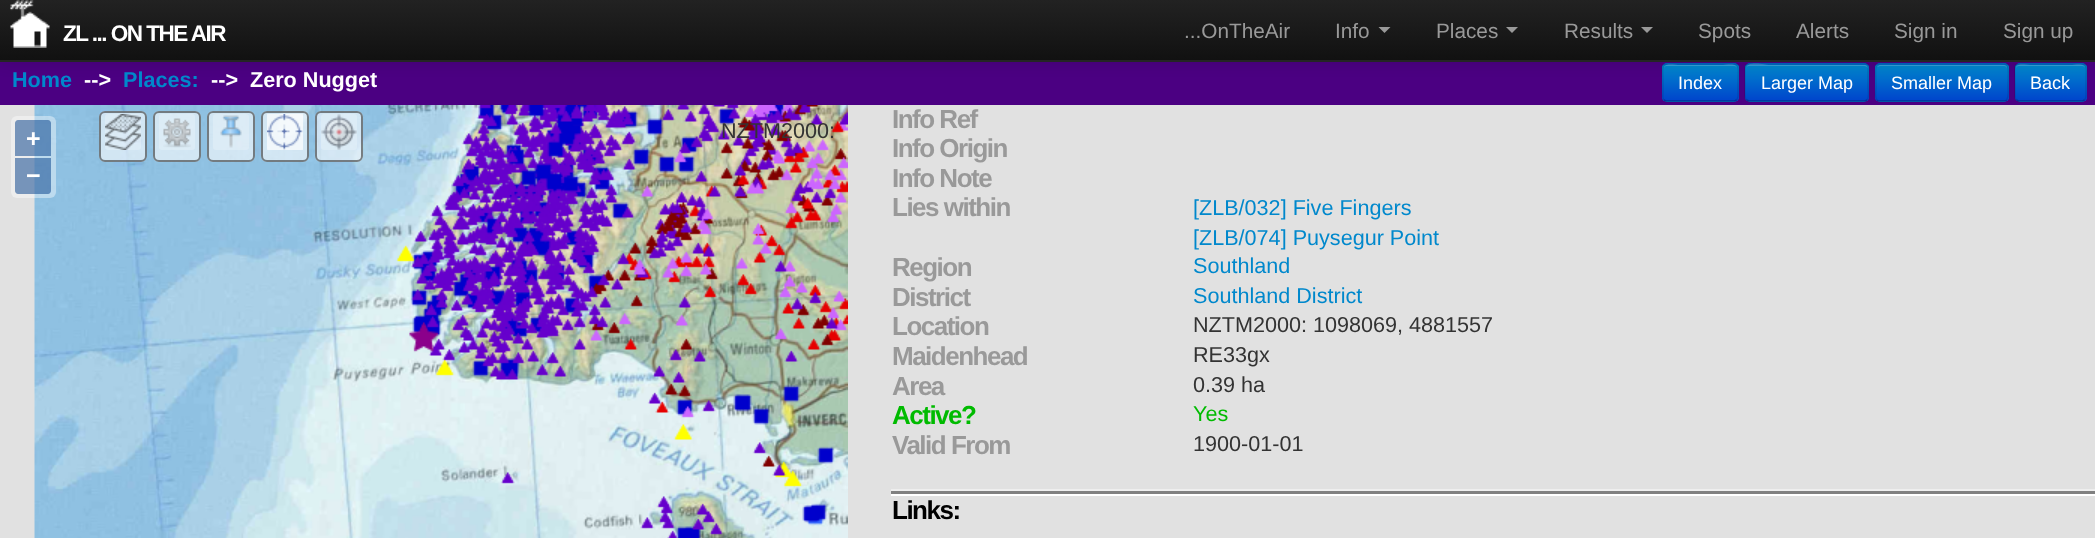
<svg xmlns="http://www.w3.org/2000/svg" width="2095" height="538">
<defs>
<clipPath id="clip1"><rect x="1662" y="63" width="77" height="39" rx="5"/></clipPath>
<linearGradient id="g1" gradientUnits="userSpaceOnUse" x1="1700" y1="65" x2="1700" y2="101"><stop offset="0" stop-color="#08c"/><stop offset="1" stop-color="#04c"/></linearGradient>
<clipPath id="clip2"><rect x="1745" y="63" width="124" height="39" rx="5"/></clipPath>
<linearGradient id="g2" gradientUnits="userSpaceOnUse" x1="1807" y1="64" x2="1807" y2="101"><stop offset="0" stop-color="#08c"/><stop offset="1" stop-color="#04c"/></linearGradient>
<clipPath id="clip3"><rect x="1875" y="63" width="134" height="39" rx="5"/></clipPath>
<linearGradient id="g3" gradientUnits="userSpaceOnUse" x1="1942" y1="64" x2="1942" y2="101"><stop offset="0" stop-color="#08c"/><stop offset="1" stop-color="#04c"/></linearGradient>
<clipPath id="clip4"><rect x="2015" y="63" width="72" height="39" rx="5"/></clipPath>
<linearGradient id="g4" gradientUnits="userSpaceOnUse" x1="2051" y1="65" x2="2051" y2="101"><stop offset="0" stop-color="#08c"/><stop offset="1" stop-color="#04c"/></linearGradient>
<linearGradient id="g5" gradientUnits="userSpaceOnUse" x1="1048" y1="0" x2="1048" y2="60"><stop offset="0" stop-color="#222"/><stop offset="1" stop-color="#111"/></linearGradient>
</defs>
<rect width="100%" height="100%" fill="#e1e1e1"/>
<rect y="62" width="2095" height="43" fill="#4b0082"/>
<rect x="1662" y="63" width="77" height="39" rx="5" fill="#006ccc"/>
<g clip-path="url(#clip1)">
<rect x="1662" y="65" width="77" height="36" fill="url(#g1)"/>
</g>
<path d="M1666 66h68c2 0 3 1 3 3c0-7-10-4-14-4h-45c-4 0-14-3-14 4c0-2 1-3 2-3z" fill="#ffffff33"/>
<path d="M1736.5 100l-2 1h-68.5l-2-1" fill="none" stroke="#00000040" stroke-width="1.5"/>
<path d="M1664 100c-2-1.5-1-5.5-1-7.5v-10c0-20-4-18.5 15-18.5h45c18.5 0 15-1.5 15 18.5v10c0 2 .5 6-1.5 7.5" fill="none" stroke="#0000001a" stroke-width="1.5"/>
<rect x="1745" y="63" width="124" height="39" rx="5" fill="#006ccc"/>
<g clip-path="url(#clip2)">
<rect x="1745" y="65" width="124" height="36" fill="url(#g2)"/>
</g>
<path d="M1749 66h115c2 0 4 1 4 3c0-2-1-4-3-4h-97c-1 0-22-5-22 4c0-2 1-3 3-3z" fill="#ffffff33"/>
<path d="M1867 100l-2 1h-97h-19l-2.5-1" fill="none" stroke="#00000040" stroke-width="1.5"/>
<path d="M1746.5 100c-2.5-2.5-1.5-10-1.5-12.5v-15c0-3-.5-8.5 4-8.5h115.5c4.5 0 3.5 5.5 3.5 8.5v15c0 2.5 1.5 10-1 12.5" fill="none" stroke="#0000001a" stroke-width="1.5"/>
<rect x="1875" y="63" width="134" height="39" rx="5" fill="#006ccc"/>
<g clip-path="url(#clip3)">
<rect x="1875" y="65" width="134" height="36" fill="url(#g3)"/>
</g>
<path d="M1880 66h124c2 0 3 1 3 3v-1c0-2-1-3-3-3h-124c-1 0-2 1-3 2z" fill="#339dd6"/>
<path d="M2006.5 100c-.5 1-1.5 1-2.5 1h-124.5c-1 0-2 0-2.5-1" fill="none" stroke="#00000040" stroke-width="1.5"/>
<path d="M1877 100c-2.5-2.5-1-10-1-12.5c0-28.5-5.5-23.5 24-23.5h83c30 0 25-5 25 23.5c0 2.5 1 10-1.5 12.5" fill="none" stroke="#0000001a" stroke-width="1.5"/>
<rect x="2015" y="63" width="72" height="39" rx="5" fill="#006ccc"/>
<g clip-path="url(#clip4)">
<rect x="2015" y="65" width="72" height="36" fill="url(#g4)"/>
</g>
<path d="M2019 66h63c2 0 3 1 3 3c0-7-9-4-13-4h-42c-5 0-14-3-14 4c0-2 1-3 3-3z" fill="#ffffff33"/>
<path d="M2084.5 100l-2 1h-64l-2-1" fill="none" stroke="#00000040" stroke-width="1.5"/>
<path d="M2016.5 100c-2-1.5-1.5-5.5-1.5-7.5v-10c0-19.5-4-18.5 14.5-18.5h42c18.5 0 14.5-1 14.5 18.5v10c0 2 .5 6-1.5 7.5" fill="none" stroke="#0000001a" stroke-width="1.5"/>
<rect y="2" width="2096" height="61" fill="#0000001a" filter="blur(7.5px)"/>
<rect width="2095" height="60" fill="url(#g5)"/>
<rect y="60" width="2095" height="2" fill="#252525"/>
<image x="10" y="0" width="40" height="48" href="media/1.png"/>
<text x="63" y="41" style="font-family:Liberation Sans;font-size:22.5px;font-weight:bold;letter-spacing:-1.5px;fill:#fff">ZL ... ON THE AIR</text>
<text x="1184" y="38" style="font-family:Liberation Sans;font-size:20.75px;fill:#999">...OnTheAir</text>
<text x="1335" y="38" style="font-family:Liberation Sans;font-size:20.75px;fill:#999">Info</text>
<path d="M1378.5 27h12l-6 6z" fill="#999"/>
<text x="1436" y="38" style="font-family:Liberation Sans;font-size:20.75px;fill:#999">Places</text>
<path d="M1506 27h12l-6 6z" fill="#999"/>
<text x="1564" y="38" style="font-family:Liberation Sans;font-size:20.75px;fill:#999">Results</text>
<path d="M1641 27h12l-6 6z" fill="#999"/>
<text x="1698" y="38" style="font-family:Liberation Sans;font-size:20.75px;fill:#999">Spots</text>
<text x="1796" y="38" style="font-family:Liberation Sans;font-size:20.75px;fill:#999">Alerts</text>
<text x="1894" y="38" style="font-family:Liberation Sans;font-size:20.75px;fill:#999">Sign in</text>
<text x="2003" y="38" style="font-family:Liberation Sans;font-size:20.75px;fill:#999">Sign up</text>
<text x="12" y="87" style="font-family:Liberation Sans;font-size:21.6px;font-weight:bold;fill:#08c">Home</text>
<text x="84" y="87" style="font-family:Liberation Sans;font-size:21.6px;font-weight:bold;fill:#fff">--&gt;</text>
<text x="123" y="87" style="font-family:Liberation Sans;font-size:21.6px;font-weight:bold;fill:#08c">Places:</text>
<text x="211" y="87" style="font-family:Liberation Sans;font-size:21.6px;font-weight:bold;fill:#fff">--&gt;</text>
<text x="250" y="87" style="font-family:Liberation Sans;font-size:21.6px;font-weight:bold;fill:#fff">Zero Nugget</text>
<text x="1678" y="89" style="font-family:Liberation Sans;font-size:18px;fill:#fff">Index</text>
<text x="1761" y="89" style="font-family:Liberation Sans;font-size:18px;fill:#fff">Larger Map</text>
<text x="1891" y="89" style="font-family:Liberation Sans;font-size:18px;fill:#fff">Smaller Map</text>
<text x="2030" y="89" style="font-family:Liberation Sans;font-size:18px;fill:#fff">Back</text>
<image x="34" y="105" width="814" height="433" href="media/2.png"/>
<rect x="11" y="116" width="45" height="82" rx="6" fill="#ffffff66"/>
<path d="M18 120h30c1.5 0 3 1.5 3 3v33h-36v-33c0-1.5 1.5-3 3-3z" fill="#003c8880"/>
<text x="26" y="147" style="font-family:Liberation Sans;font-size:25px;font-weight:bold;fill:#fff">+</text>
<path d="M15 158h36v33c0 1.5-1.5 3-3 3h-30c-1.5 0-3-1.5-3-3z" fill="#003c8880"/>
<text x="26" y="184" style="font-family:Liberation Sans;font-size:25px;font-weight:bold;fill:#fff">−</text>
<rect x="99" y="111" width="48" height="51" rx="6" fill="#ffffff99"/>
<rect x="100" y="112" width="46" height="49" rx="5" fill="none" stroke="#33333399" stroke-width="2"/>
<rect x="105" y="114" width="36" height="36" rx="3" fill="#ffffff3d"/>
<image x="105" y="114" width="36" height="36" href="media/3.png"/>
<rect x="153" y="111" width="48" height="51" rx="6" fill="#ffffff99"/>
<rect x="154" y="112" width="46" height="49" rx="5" fill="none" stroke="#33333399" stroke-width="2"/>
<rect x="159" y="114" width="36" height="36" rx="3" fill="#ffffff3d"/>
<image x="163" y="118" width="28" height="30" href="media/4.png"/>
<rect x="207" y="111" width="48" height="51" rx="6" fill="#ffffff99"/>
<rect x="208" y="112" width="46" height="49" rx="5" fill="none" stroke="#33333399" stroke-width="2"/>
<rect x="213" y="114" width="36" height="36" rx="3" fill="#ffffff3d"/>
<image x="220" y="115" width="22" height="33" href="media/5.png"/>
<rect x="261" y="111" width="48" height="51" rx="6" fill="#ffffff99"/>
<rect x="262" y="112" width="46" height="49" rx="5" fill="none" stroke="#33333399" stroke-width="2"/>
<rect x="267" y="114" width="36" height="36" rx="3" fill="#ffffff3d"/>
<image x="267" y="114" width="36" height="36" href="media/6.png"/>
<rect x="315" y="111" width="48" height="51" rx="6" fill="#ffffff99"/>
<rect x="316" y="112" width="46" height="49" rx="5" fill="none" stroke="#33333399" stroke-width="2"/>
<rect x="321" y="114" width="36" height="36" rx="3" fill="#ffffff3d"/>
<image x="321" y="114" width="36" height="36" href="media/7.png"/>
<text x="721" y="138" style="font-family:Liberation Sans;font-size:21.6px;fill:#333">NZTM2000:</text>
<text x="892" y="128" style="font-family:Liberation Sans;font-size:26px;font-weight:bold;letter-spacing:-1.5px;fill:#999">Info Ref</text>
<text x="892" y="157" style="font-family:Liberation Sans;font-size:26px;font-weight:bold;letter-spacing:-1.5px;fill:#999">Info Origin</text>
<text x="892" y="187" style="font-family:Liberation Sans;font-size:26px;font-weight:bold;letter-spacing:-1.5px;fill:#999">Info Note</text>
<text x="892" y="216" style="font-family:Liberation Sans;font-size:26px;font-weight:bold;letter-spacing:-1.5px;fill:#999">Lies within</text>
<text x="1193" y="215" style="font-family:Liberation Sans;font-size:21.6px;fill:#08c">[ZLB/032] Five Fingers</text>
<text x="1193" y="245" style="font-family:Liberation Sans;font-size:21.6px;fill:#08c">[ZLB/074] Puysegur Point</text>
<text x="892" y="276" style="font-family:Liberation Sans;font-size:26px;font-weight:bold;letter-spacing:-1.5px;fill:#999">Region</text>
<text x="1193" y="273" style="font-family:Liberation Sans;font-size:21.6px;fill:#08c">Southland</text>
<text x="892" y="306" style="font-family:Liberation Sans;font-size:26px;font-weight:bold;letter-spacing:-1.5px;fill:#999">District</text>
<text x="1193" y="303" style="font-family:Liberation Sans;font-size:21.6px;fill:#08c">Southland District</text>
<text x="892" y="335" style="font-family:Liberation Sans;font-size:26px;font-weight:bold;letter-spacing:-1.5px;fill:#999">Location</text>
<text x="1193" y="332" style="font-family:Liberation Sans;font-size:21.6px;fill:#333">NZTM2000: 1098069, 4881557</text>
<text x="892" y="365" style="font-family:Liberation Sans;font-size:26px;font-weight:bold;letter-spacing:-1.5px;fill:#999">Maidenhead</text>
<text x="1193" y="362" style="font-family:Liberation Sans;font-size:21.6px;fill:#333">RE33gx</text>
<text x="892" y="395" style="font-family:Liberation Sans;font-size:26px;font-weight:bold;letter-spacing:-1.5px;fill:#999">Area</text>
<text x="1193" y="392" style="font-family:Liberation Sans;font-size:21.6px;fill:#333">0.39 ha</text>
<text x="892" y="424" style="font-family:Liberation Sans;font-size:26px;font-weight:bold;letter-spacing:-1.5px;fill:#0b0">Active?</text>
<text x="1193" y="421" style="font-family:Liberation Sans;font-size:21.6px;fill:#0b0">Yes</text>
<text x="892" y="454" style="font-family:Liberation Sans;font-size:26px;font-weight:bold;letter-spacing:-1.5px;fill:#999">Valid From</text>
<text x="1193" y="451" style="font-family:Liberation Sans;font-size:21.6px;fill:#333">1900-01-01</text>
<rect x="891" y="491" width="1204" height="3" fill="#808080"/>
<rect x="891" y="489" width="1204" height="2" fill="#eee"/>
<rect x="891" y="494" width="1204" height="2" fill="#fff"/>
<text x="892" y="519" style="font-family:Liberation Sans;font-size:26px;font-weight:bold;letter-spacing:-1.5px;fill:#000">Links:</text>
</svg>
